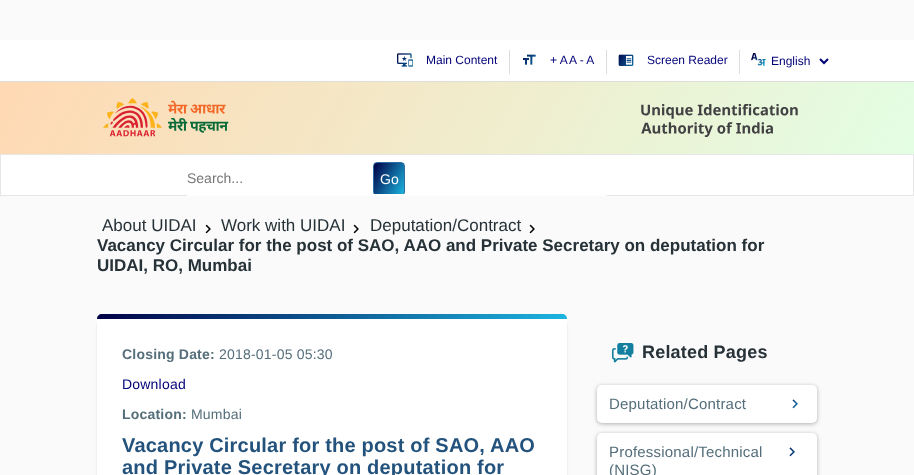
<svg xmlns="http://www.w3.org/2000/svg" width="914" height="475">
<defs>
<linearGradient id="g1" gradientUnits="userSpaceOnUse" x1="96" y1="-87" x2="818" y2="323"><stop offset="0" stop-color="#ffd9b3"/><stop offset="1" stop-color="#e3fee4"/></linearGradient>
<linearGradient id="g2" gradientUnits="userSpaceOnUse" x1="371" y1="169" x2="407" y2="189"><stop offset="0" stop-color="#000046"/><stop offset="1" stop-color="#1cb5e0"/></linearGradient>
<linearGradient id="g3" gradientUnits="userSpaceOnUse" x1="153" y1="215" x2="511" y2="418"><stop offset="0" stop-color="#000046"/><stop offset="1" stop-color="#1cb5e0"/></linearGradient>
</defs>
<rect width="100%" height="100%" fill="#fafafa"/>
<rect y="40" width="914" height="41" fill="#fff"/>
<rect x="509" y="50" width="1" height="24" fill="#ddd"/>
<image x="397" y="53" width="16" height="14" href="media/1.png"/>
<text x="426" y="64" style="font-family:Liberation Sans;font-size:12px;fill:#010178">Main Content</text>
<rect x="606" y="50" width="1" height="24" fill="#ddd"/>
<image x="523" y="54" width="13" height="11" href="media/2.png"/>
<text x="550" y="64" style="font-family:Liberation Sans;font-size:12px;fill:#010178">+ A</text>
<text x="569" y="64" style="font-family:Liberation Sans;font-size:12px;fill:#010178">A - A</text>
<rect x="739" y="50" width="1" height="24" fill="#ddd"/>
<image x="618" y="54" width="16" height="12" href="media/3.png"/>
<text x="647" y="64" style="font-family:Liberation Sans;font-size:12px;fill:#010178">Screen Reader</text>
<image x="751" y="53" width="15" height="13" href="media/4.png"/>
<path d="M820 59l4 4l4-4" fill="none" stroke="#010178" stroke-width="2"/>
<text x="771" y="65" style="font-family:Liberation Sans;font-size:12px;fill:#010178">English</text>
<rect y="81" width="914" height="1" fill="#ddd"/>
<rect y="82" width="914" height="72" fill="url(#g1)"/>
<image x="103" y="97" width="126" height="40" href="media/5.png"/>
<image x="641" y="104" width="157" height="33" href="media/6.png"/>
<rect x="0.5" y="154.5" width="913" height="41" fill="#fff" stroke="#e6e6e6"/>
<text x="187" y="183" style="font-family:Liberation Sans;font-size:14px;fill:#757575">Search...</text>
<rect x="374" y="163" width="30" height="31" fill="url(#g2)"/>
<rect x="373.5" y="162.5" width="31" height="33" rx="3.5" fill="none" stroke="#2e6da4"/>
<text x="380" y="184" style="font-family:Liberation Sans;font-size:14px;fill:#fff">Go</text>
<rect x="187" y="194" width="420" height="2" rx="1" fill="#fefefe"/>
<text x="102" y="231" style="font-family:Liberation Sans;font-size:17px;fill:#263238">About UIDAI</text>
<image x="205" y="224" width="6" height="10" href="media/7.png"/>
<text x="221" y="231" style="font-family:Liberation Sans;font-size:17px;fill:#263238">Work with UIDAI</text>
<image x="353" y="224" width="6" height="10" href="media/7.png"/>
<text x="370" y="231" style="font-family:Liberation Sans;font-size:17px;fill:#263238">Deputation/Contract</text>
<image x="529" y="224" width="6" height="10" href="media/7.png"/>
<text x="97" y="251" style="font-family:Liberation Sans;font-size:17px;font-weight:bold;fill:#263238">Vacancy Circular for the post of SAO, AAO and Private Secretary on deputation for</text>
<text x="97" y="271" style="font-family:Liberation Sans;font-size:17px;font-weight:bold;fill:#263238">UIDAI, RO, Mumbai</text>
<path d="M102 314h460c3 0 5 2 5 5h-470c0-3 2-5 5-5z" fill="url(#g3)"/>
<rect x="97" y="321" width="470" height="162" rx="5" fill="#0000001a" filter="blur(1px)"/>
<rect x="97" y="319" width="470" height="156" fill="#fff"/>
<text x="122" y="359" style="font-family:Liberation Sans;font-size:14px;font-weight:bold;letter-spacing:0.2px;fill:#546e7a">Closing Date:</text>
<text x="219" y="359" style="font-family:Liberation Sans;font-size:14px;letter-spacing:0.2px;fill:#546e7a">2018-01-05 05:30</text>
<text x="122" y="389" style="font-family:Liberation Sans;font-size:14px;letter-spacing:0.2px;fill:#010178">Download</text>
<text x="122" y="419" style="font-family:Liberation Sans;font-size:14px;font-weight:bold;letter-spacing:0.2px;fill:#546e7a">Location:</text>
<text x="191" y="419" style="font-family:Liberation Sans;font-size:14px;letter-spacing:0.2px;fill:#546e7a">Mumbai</text>
<text x="122" y="452" style="font-family:Liberation Sans;font-size:20px;font-weight:bold;letter-spacing:0.2px;fill:#23527c">Vacancy Circular for the post of SAO, AAO</text>
<text x="122" y="474" style="font-family:Liberation Sans;font-size:20px;font-weight:bold;letter-spacing:0.2px;fill:#23527c">and Private Secretary on deputation for</text>
<image x="612" y="343" width="22" height="20" href="media/8.png"/>
<text x="642" y="358" style="font-family:Liberation Sans;font-size:18px;font-weight:bold;letter-spacing:0.2px;fill:#263238">Related Pages</text>
<rect x="597" y="386" width="220" height="38" rx="5" fill="#0000004d" filter="blur(2px)"/>
<rect x="597" y="385" width="220" height="38" rx="5" fill="#fff"/>
<text x="609" y="409" style="font-family:Liberation Sans;font-size:15px;letter-spacing:0.2px;fill:#546e7a">Deputation/Contract</text>
<image x="792" y="399" width="6" height="10" href="media/9.png"/>
<rect x="597" y="434" width="220" height="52" rx="5" fill="#0000004d" filter="blur(2px)"/>
<rect x="597" y="433" width="220" height="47" rx="5" fill="#fff"/>
<text x="609" y="457" style="font-family:Liberation Sans;font-size:15px;letter-spacing:0.2px;fill:#546e7a">Professional/Technical</text>
<image x="789" y="447" width="6" height="10" href="media/10.png"/>
<text x="609" y="475" style="font-family:Liberation Sans;font-size:15px;letter-spacing:0.2px;fill:#546e7a">(NISG)</text>
</svg>
